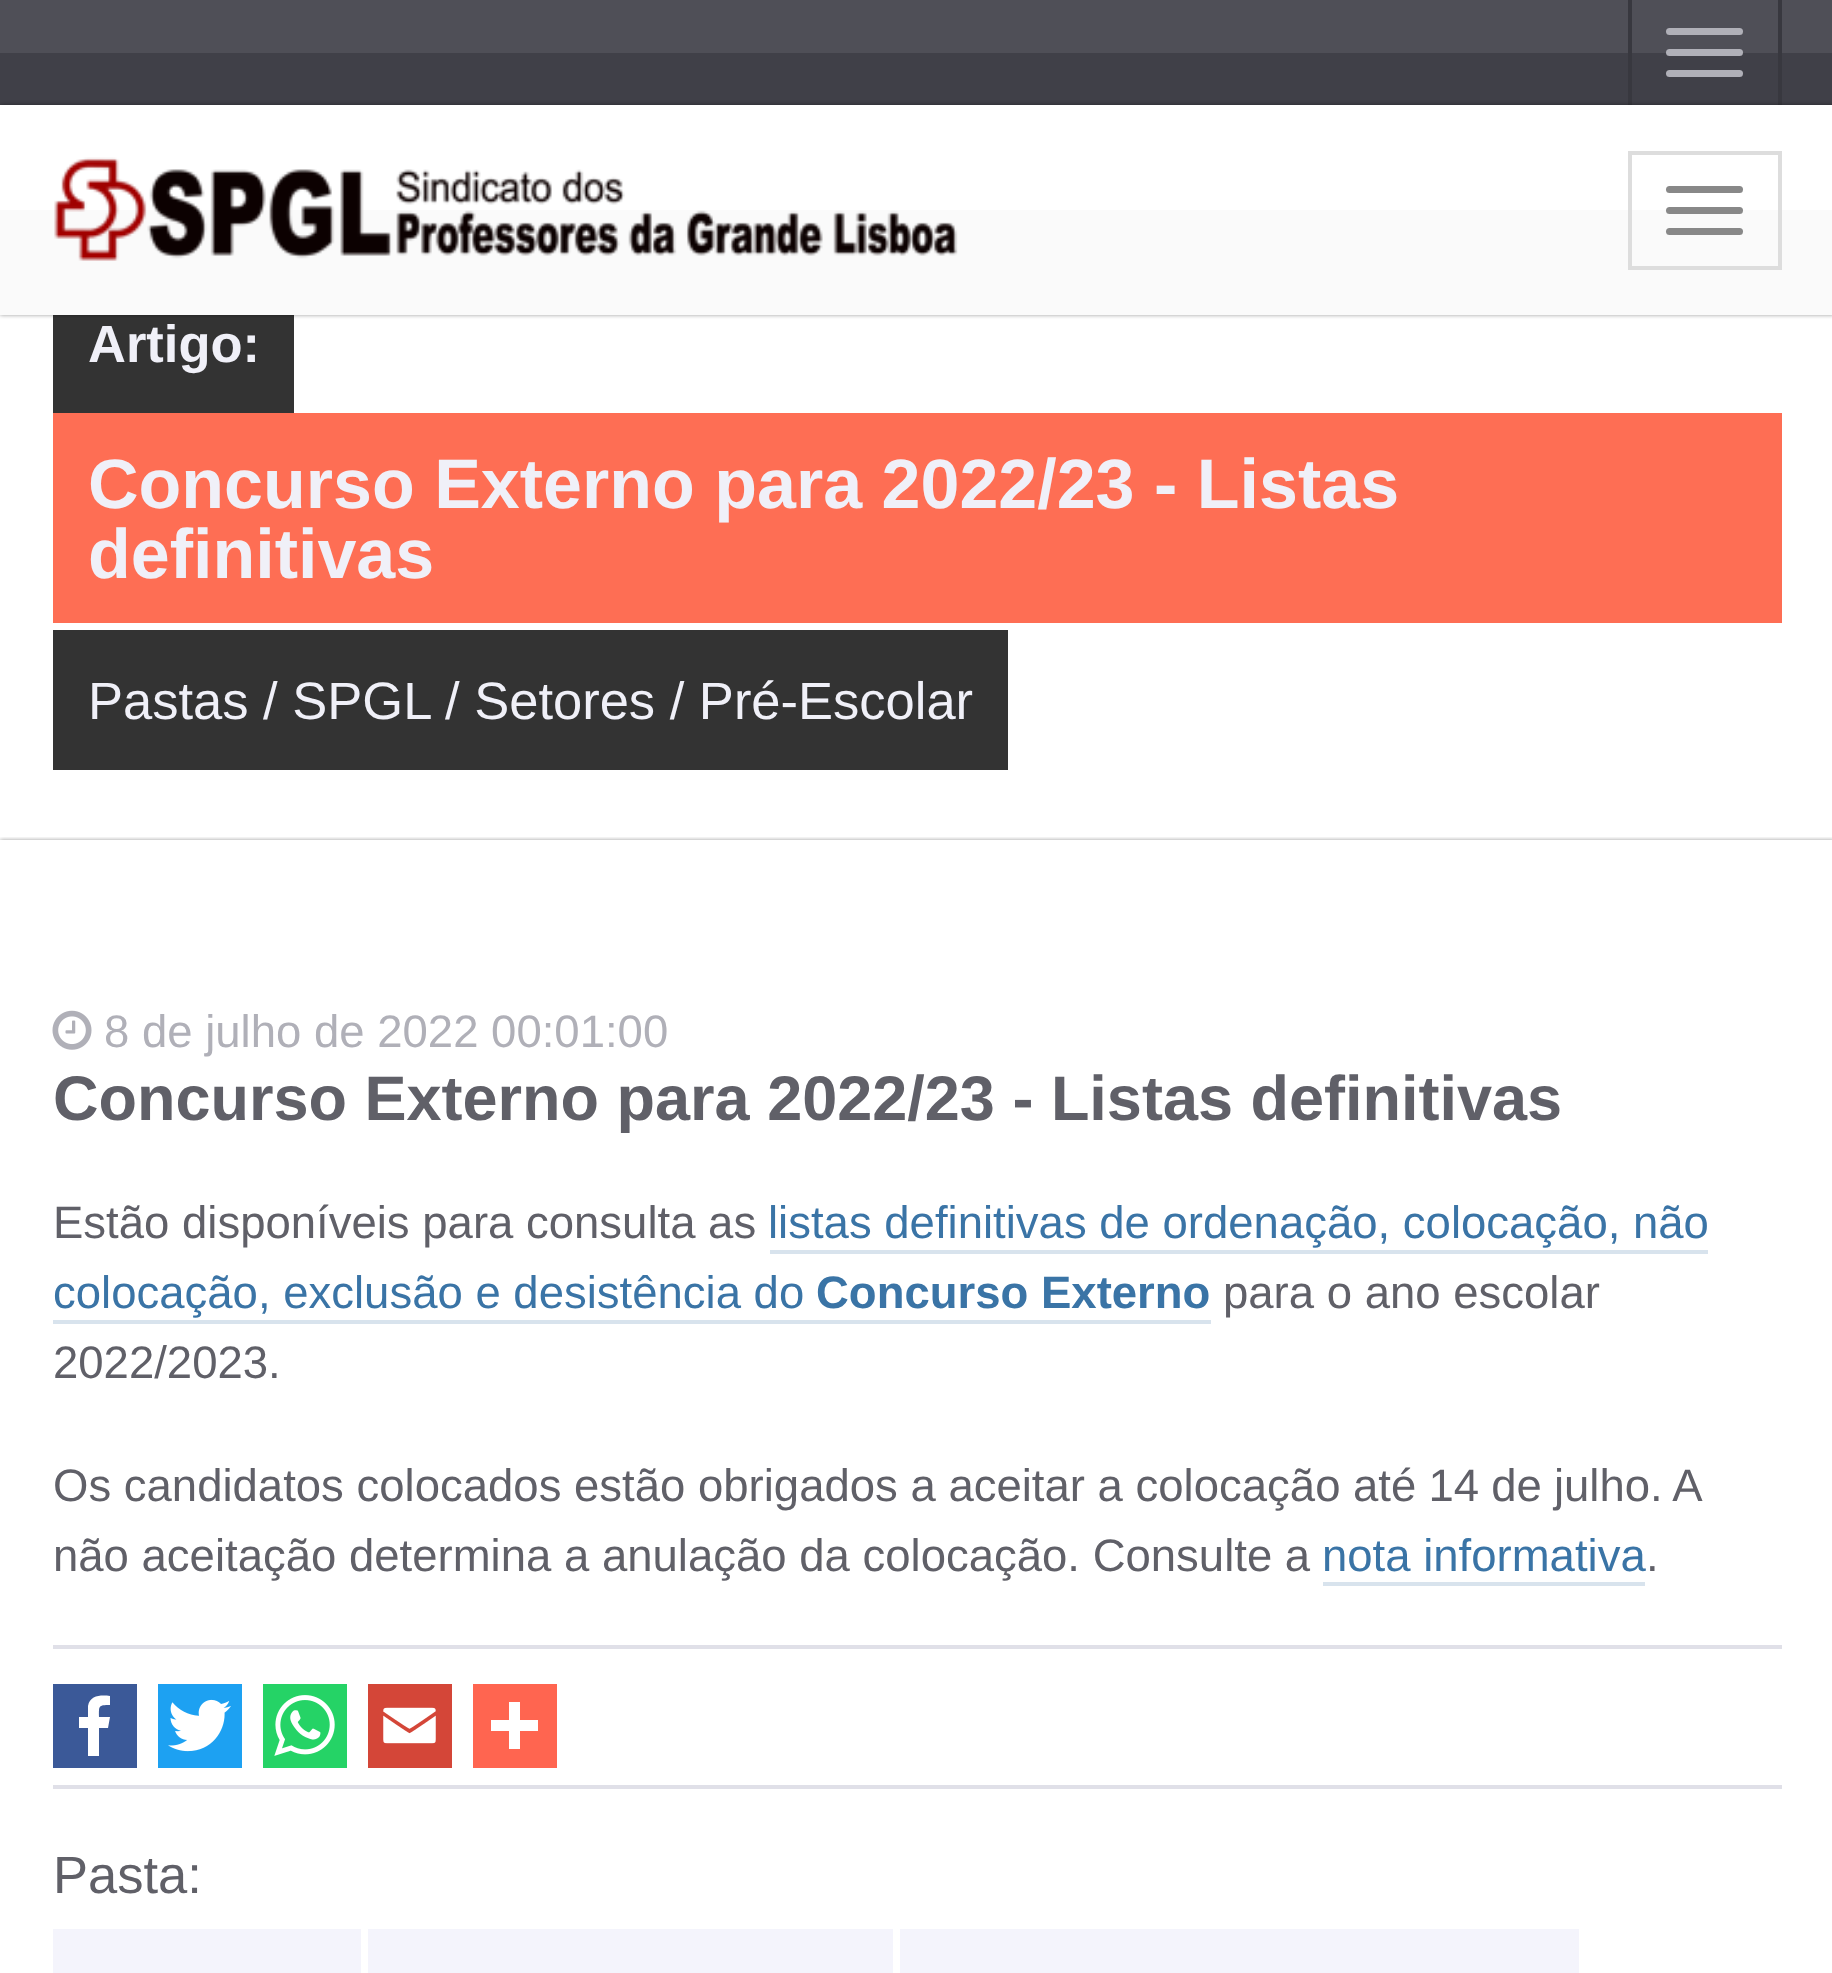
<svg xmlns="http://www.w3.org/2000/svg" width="1832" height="1973">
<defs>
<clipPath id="clip1"><rect x="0" y="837" width="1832" height="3"/></clipPath>
</defs>
<rect width="100%" height="100%" fill="#fff"/>
<rect y="53" width="1832" height="52" fill="#404048"/>
<rect width="1832" height="53" fill="#4f4f57"/>
<rect x="1778" width="4" height="105" fill="#38383f"/>
<rect x="1628" width="4" height="105" fill="#38383f"/>
<rect x="1666" y="28" width="77" height="7" rx="3.5" fill="#b0b0b8"/>
<rect x="1666" y="49" width="77" height="7" rx="3.5" fill="#b0b0b8"/>
<rect x="1666" y="70" width="77" height="7" rx="3.5" fill="#b0b0b8"/>
<rect x="53" y="315" width="241" height="98" fill="#333"/>
<rect y="105" width="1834" height="210" fill="#00000066" filter="blur(2px)"/>
<rect y="210" width="1832" height="105" fill="#fafafa"/>
<rect y="105" width="1832" height="105" fill="#fff"/>
<image x="54" y="157" width="904" height="104" href="media/1.png"/>
<rect x="1630" y="153" width="150" height="115" fill="none" stroke="#ddd" stroke-width="4"/>
<rect x="1666" y="186" width="77" height="7" rx="3.5" fill="#888"/>
<rect x="1666" y="207" width="77" height="7" rx="3.5" fill="#888"/>
<rect x="1666" y="228" width="77" height="7" rx="3.5" fill="#888"/>
<text x="88" y="362" style="font-family:Liberation Sans;font-size:52.5px;font-weight:bold;fill:#f0f0f8">Artigo:</text>
<rect x="53" y="413" width="1729" height="210" fill="#fe6e54"/>
<text x="88" y="508" style="font-family:Liberation Sans;font-size:70px;font-weight:bold;fill:#f0f0f8">Concurso Externo para 2022/23 - Listas</text>
<text x="88" y="578" style="font-family:Liberation Sans;font-size:70px;font-weight:bold;fill:#f0f0f8">definitivas</text>
<rect x="53" y="630" width="955" height="140" fill="#333"/>
<text x="88" y="719" style="font-family:Liberation Sans;font-size:52.5px;fill:#f0f0f8">Pastas / SPGL</text>
<text x="445" y="719" style="font-family:Liberation Sans;font-size:52.5px;fill:#f0f0f8">/ Setores / Pré-Escolar</text>
<g clip-path="url(#clip1)">
<rect y="840" width="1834" height="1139" fill="#00000066" filter="blur(2px)"/>
</g>
<image x="52" y="1010" width="40" height="40" href="media/2.png"/>
<text x="104" y="1047" style="font-family:Liberation Sans;font-size:45.5px;fill:#b0b0b8">8 de julho de 2022 00:01:00</text>
<rect x="53" y="1645" width="1729" height="4" fill="#e0e0e8"/>
<text x="53" y="1120" style="font-family:Liberation Sans;font-size:63px;font-weight:bold;fill:#606068">Concurso Externo para 2022/23 - Listas definitivas</text>
<text x="53" y="1238" style="font-family:Liberation Sans;font-size:45.5px;fill:#606068">Estão disponíveis para consulta as</text>
<text x="768" y="1238" style="font-family:Liberation Sans;font-size:45.5px;fill:#3a74a6">listas definitivas de ordenação, colocação, não</text>
<rect x="770" y="1250" width="938" height="4" fill="#d8e3ed"/>
<text x="53" y="1308" style="font-family:Liberation Sans;font-size:45.5px;fill:#3a74a6">colocação, exclusão e desistência do</text>
<rect x="53" y="1320" width="1158" height="4" fill="#d8e3ed"/>
<text x="816" y="1308" style="font-family:Liberation Sans;font-size:45.5px;font-weight:bold;fill:#3a74a6">Concurso Externo</text>
<text x="1223" y="1308" style="font-family:Liberation Sans;font-size:45.5px;fill:#606068">para o ano escolar</text>
<text x="53" y="1378" style="font-family:Liberation Sans;font-size:45.5px;fill:#606068">2022/2023.</text>
<text x="53" y="1501" style="font-family:Liberation Sans;font-size:45.5px;fill:#606068">Os candidatos colocados estão obrigados a aceitar a colocação</text>
<text x="1353" y="1501" word-spacing="-0.5" style="font-family:Liberation Sans;font-size:45.5px;fill:#606068">até 14 de julho. A</text>
<text x="53" y="1571" style="font-family:Liberation Sans;font-size:45.5px;fill:#606068">não aceitação determina a anulação da colocação. Consulte a</text>
<text x="1322" y="1571" style="font-family:Liberation Sans;font-size:45.5px;fill:#3a74a6">nota informativa</text>
<rect x="1323" y="1582" width="322" height="4" fill="#d8e3ed"/>
<text x="1646" y="1571" style="font-family:Liberation Sans;font-size:45.5px;fill:#606068">.</text>
<rect x="53" y="1785" width="1729" height="4" fill="#e0e0e8"/>
<rect x="53" y="1684" width="84" height="84" fill="#3b5998"/>
<rect x="158" y="1684" width="84" height="84" fill="#1da1f2"/>
<rect x="263" y="1684" width="84" height="84" fill="#25d366"/>
<rect x="368" y="1684" width="84" height="84" fill="#d44638"/>
<rect x="473" y="1684" width="84" height="84" fill="#ff6550"/>
<path d="M99 1756v-28h9l2-11h-11c0-11-1-12 11-12v-9c-9-1-20-1-22 10v11h-9v11h9v28z" fill="#fff"/>
<image x="168" y="1699" width="63" height="53" href="media/3.png"/>
<image x="274" y="1695" width="61" height="61" href="media/4.png"/>
<image x="383" y="1707" width="53" height="37" href="media/5.png"/>
<rect x="509" y="1702" width="11" height="47" fill="#fff"/>
<rect x="491" y="1720" width="47" height="11" fill="#fff"/>
<text x="53" y="1893" style="font-family:Liberation Sans;font-size:52.5px;fill:#606068">Pasta:</text>
<rect x="53" y="1929" width="308" height="44" fill="#f4f4fc"/>
<rect x="368" y="1929" width="525" height="44" fill="#f4f4fc"/>
<rect x="900" y="1929" width="679" height="44" fill="#f4f4fc"/>
</svg>
